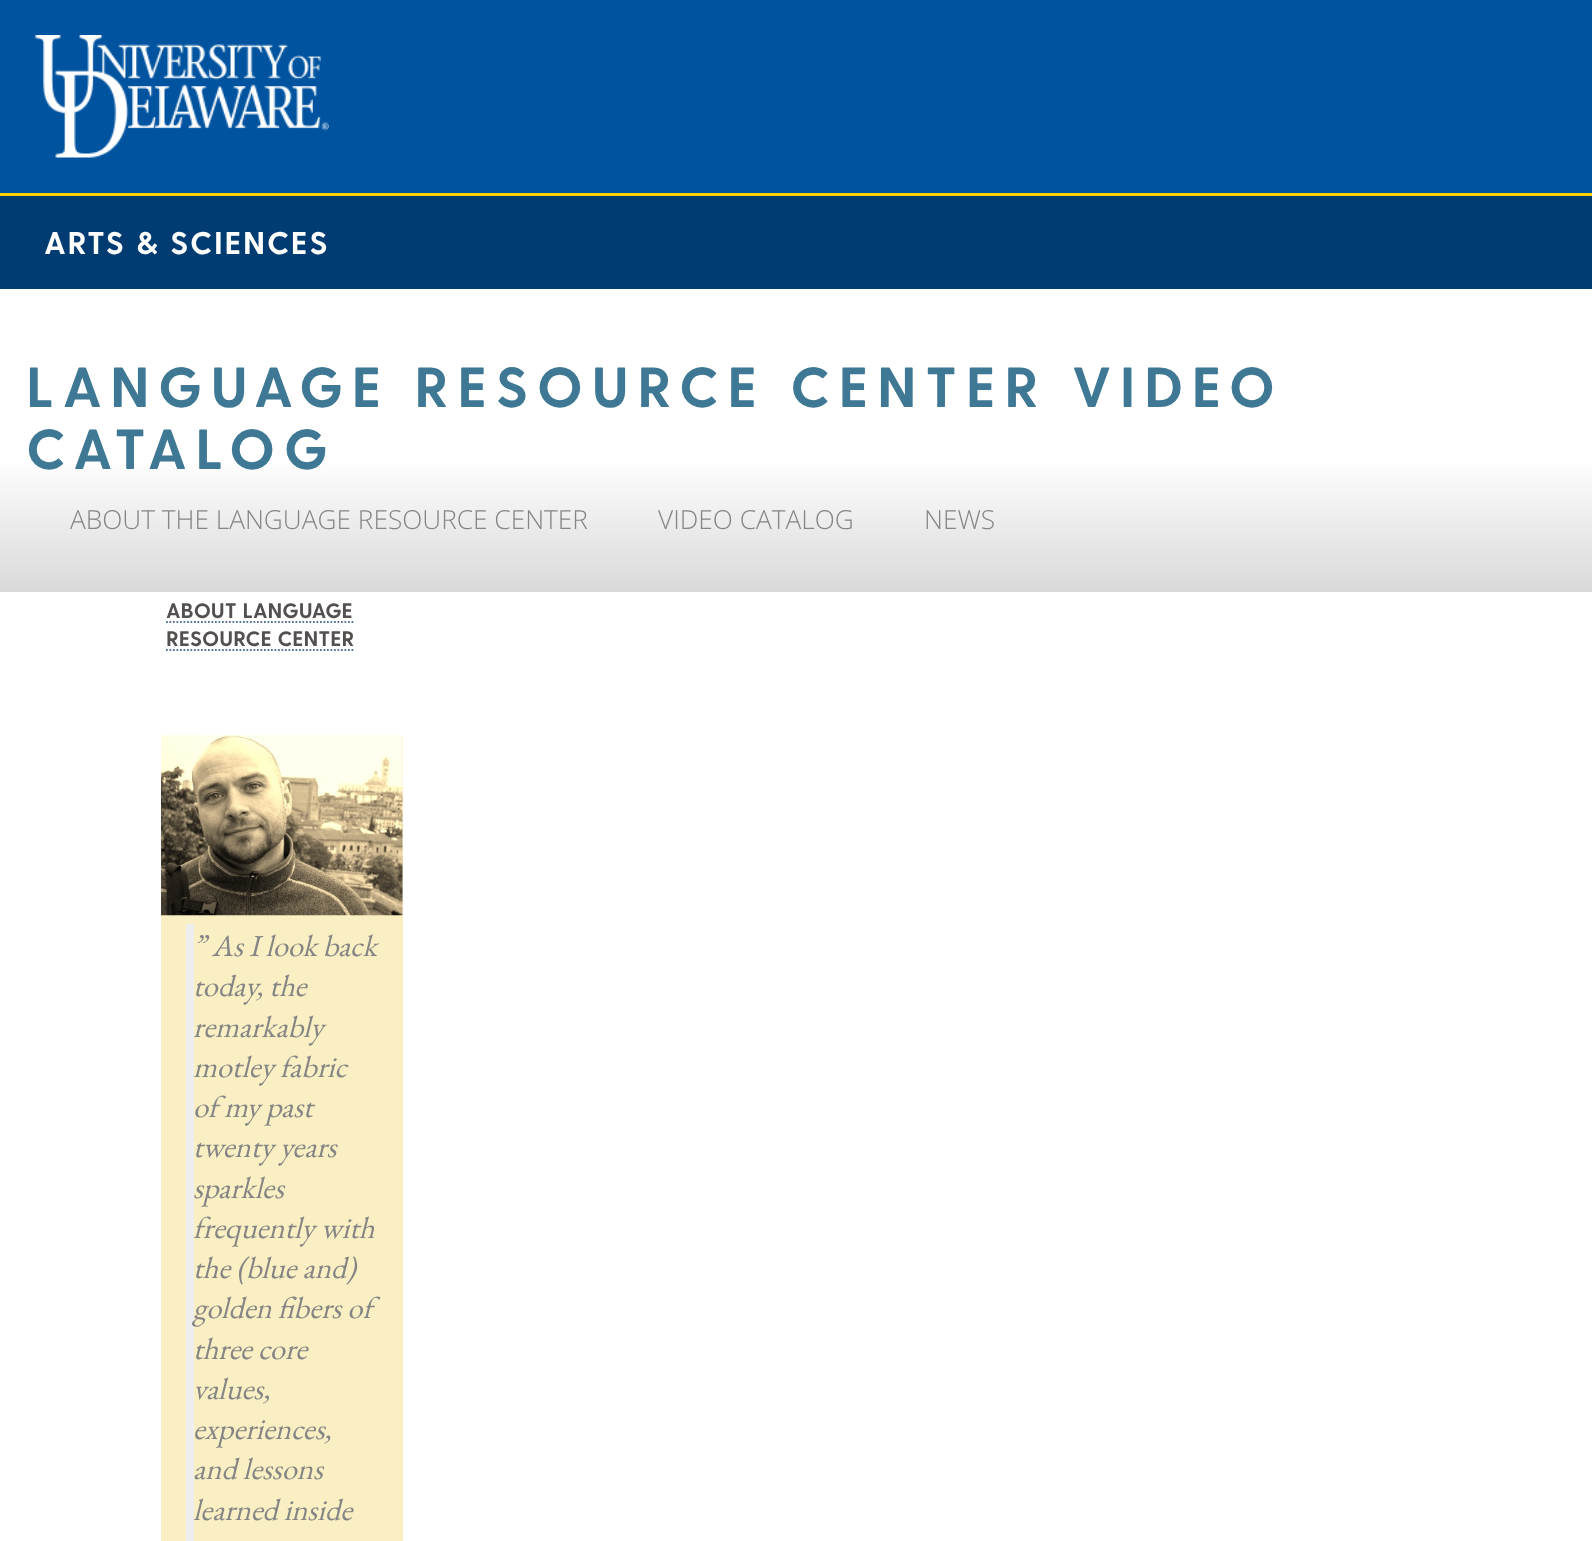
<svg xmlns="http://www.w3.org/2000/svg" width="1592" height="1541">
<defs>
<linearGradient id="g1" gradientUnits="userSpaceOnUse" x1="796" y1="324" x2="796" y2="592"><stop offset="0.49" stop-color="#fff"/><stop offset="1" stop-color="#d9d9d9"/></linearGradient>
</defs>
<rect width="100%" height="100%" fill="#fff"/>
<rect width="1592" height="193" fill="#00539f"/>
<rect y="193" width="1592" height="3" fill="#ffd300"/>
<image x="35" y="35" width="294" height="123" href="media/1.png"/>
<rect y="196" width="1592" height="93" fill="#003c71"/>
<text x="44" y="254" style="font-family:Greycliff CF;font-size:31.5px;font-weight:bold;letter-spacing:1.75px;fill:#fff">ARTS &amp; SCIENCES</text>
<rect y="464" width="1592" height="128" fill="url(#g1)"/>
<text x="26" y="407" style="font-family:Greycliff CF;font-size:56.4px;font-weight:bold;letter-spacing:8.5px;fill:#3f7895">LANGUAGE RESOURCE CENTER VIDEO</text>
<text x="26" y="469" style="font-family:Greycliff CF;font-size:56.4px;font-weight:bold;letter-spacing:8.5px;fill:#3f7895">CATALOG</text>
<text x="70" y="529" style="font-family:Open Sans;font-size:26.25px;font-weight:300;fill:#858585">ABOUT THE LANGUAGE RESOURCE CENTER</text>
<text x="658" y="529" style="font-family:Open Sans;font-size:26.25px;font-weight:300;fill:#858585">VIDEO CATALOG</text>
<text x="924" y="529" style="font-family:Open Sans;font-size:26.25px;font-weight:300;fill:#858585">NEWS</text>
<text x="166" y="618" style="font-family:Greycliff CF;font-size:21px;font-weight:bold;fill:#545050">ABOUT LANGUAGE</text>
<path d="M166 622h187.5" fill="none" stroke="#557598" stroke-width="1.8" stroke-dasharray="1.75 1.75"/>
<text x="166" y="646" style="font-family:Greycliff CF;font-size:21px;font-weight:bold;fill:#545050">RESOURCE CENTER</text>
<path d="M166 650h189" fill="none" stroke="#557598" stroke-width="1.8" stroke-dasharray="1.75 1.75"/>
<rect x="161" y="735" width="242" height="806" fill="#faefc2"/>
<image x="161" y="735" width="242" height="181" href="media/2.png"/>
<rect x="186" y="924" width="8" height="617" fill="#eee"/>
<text x="193" y="956" style="font-family:EB Garamond;font-size:30.5px;font-style:italic;fill:#858585">” As I look back</text>
<text x="193" y="996" style="font-family:EB Garamond;font-size:30.5px;font-style:italic;fill:#858585">today, the</text>
<text x="193" y="1037" style="font-family:EB Garamond;font-size:30.5px;font-style:italic;fill:#858585">remarkably</text>
<text x="193" y="1077" style="font-family:EB Garamond;font-size:30.5px;font-style:italic;fill:#858585">motley fabric</text>
<text x="193" y="1117" style="font-family:EB Garamond;font-size:30.5px;font-style:italic;fill:#858585">of my past</text>
<text x="193" y="1157" style="font-family:EB Garamond;font-size:30.5px;font-style:italic;fill:#858585">twenty years</text>
<text x="193" y="1198" style="font-family:EB Garamond;font-size:30.5px;font-style:italic;fill:#858585">sparkles</text>
<text x="193" y="1238" style="font-family:EB Garamond;font-size:30.5px;font-style:italic;fill:#858585">frequently with</text>
<text x="193" y="1278" style="font-family:EB Garamond;font-size:30.5px;font-style:italic;fill:#858585">the (blue and)</text>
<text x="193" y="1318" style="font-family:EB Garamond;font-size:30.5px;font-style:italic;fill:#858585">golden fibers of</text>
<text x="193" y="1359" style="font-family:EB Garamond;font-size:30.5px;font-style:italic;fill:#858585">three core</text>
<text x="193" y="1399" style="font-family:EB Garamond;font-size:30.5px;font-style:italic;fill:#858585">values,</text>
<text x="193" y="1439" style="font-family:EB Garamond;font-size:30.5px;font-style:italic;fill:#858585">experiences,</text>
<text x="193" y="1479" style="font-family:EB Garamond;font-size:30.5px;font-style:italic;fill:#858585">and lessons</text>
<text x="193" y="1520" style="font-family:EB Garamond;font-size:30.5px;font-style:italic;fill:#858585">learned inside</text>
</svg>
